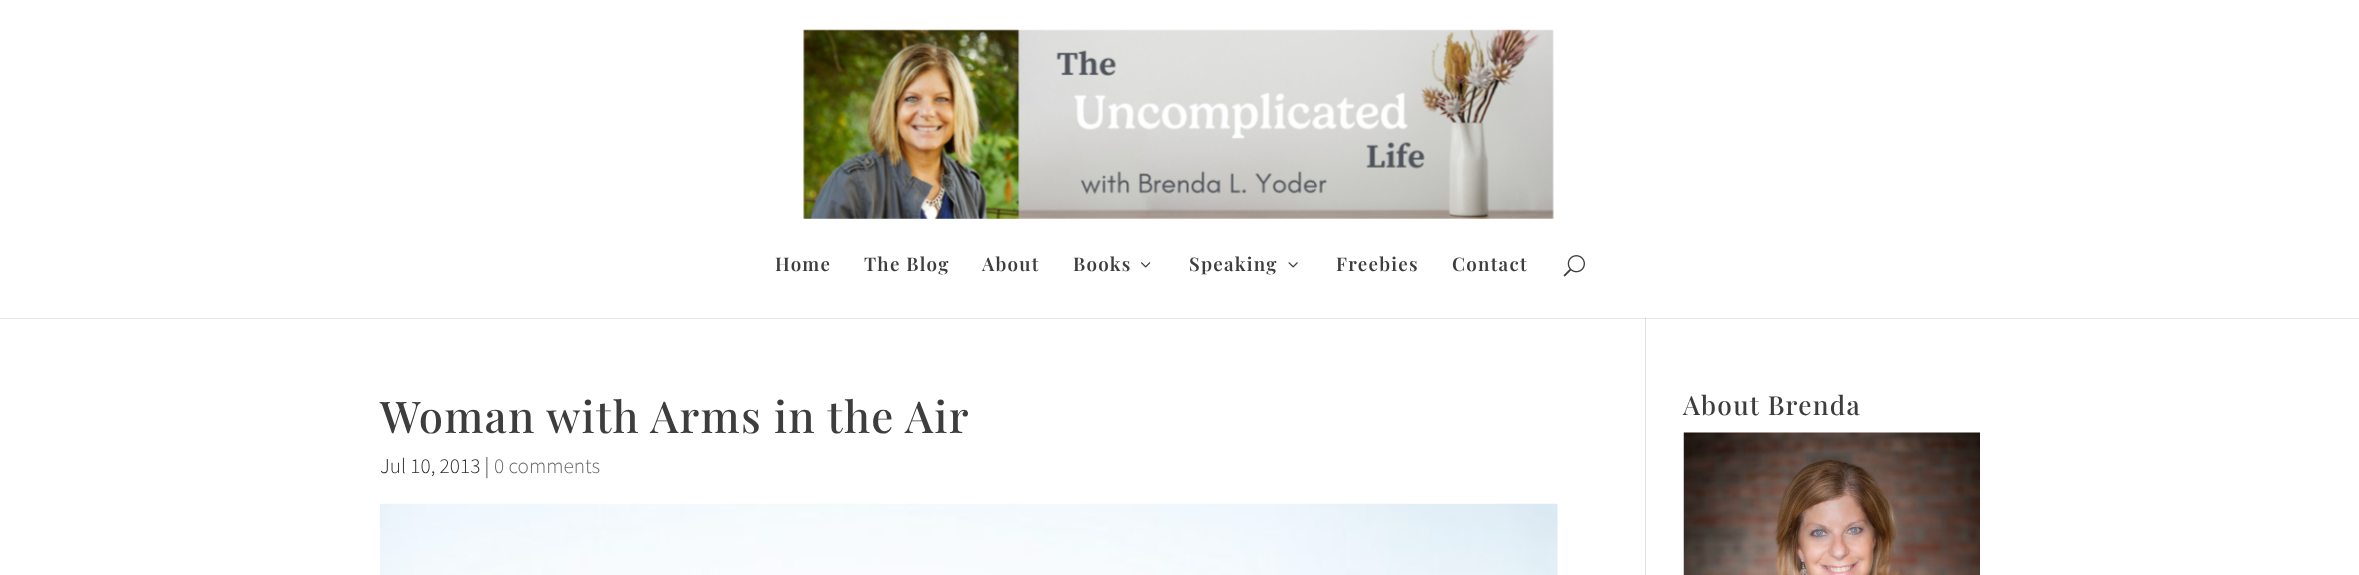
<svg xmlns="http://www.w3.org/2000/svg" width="2359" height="575">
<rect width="100%" height="100%" fill="#fff"/>
<rect y="318" width="2359" height="1" fill="#e6e6e6"/>
<rect x="1645" y="316" width="1" height="259" fill="#e2e2e2"/>
<rect x="1645" y="316" width="1" height="2" fill="#fff"/>
<image x="803" y="29" width="751" height="190" href="media/1.png"/>
<text x="775" y="271" style="font-family:Playfair Display;font-size:18.75px;font-weight:600;letter-spacing:1.25px;fill:#3d3d3d">Home</text>
<text x="864" y="271" style="font-family:Playfair Display;font-size:18.75px;font-weight:600;letter-spacing:1.25px;fill:#3d3d3d">The Blog</text>
<text x="982" y="271" style="font-family:Playfair Display;font-size:18.75px;font-weight:600;letter-spacing:1.25px;fill:#3d3d3d">About</text>
<text x="1073" y="271" style="font-family:Playfair Display;font-size:18.75px;font-weight:600;letter-spacing:1.25px;fill:#3d3d3d">Books</text>
<image x="1141" y="262" width="10" height="6" href="media/2.png"/>
<text x="1189" y="271" style="font-family:Playfair Display;font-size:18.75px;font-weight:600;letter-spacing:1.25px;fill:#3d3d3d">Speaking</text>
<image x="1288" y="262" width="10" height="6" href="media/3.png"/>
<text x="1336" y="271" style="font-family:Playfair Display;font-size:18.75px;font-weight:600;letter-spacing:1.25px;fill:#3d3d3d">Freebies</text>
<text x="1452" y="271" style="font-family:Playfair Display;font-size:18.75px;font-weight:600;letter-spacing:1.25px;fill:#3d3d3d">Contact</text>
<image x="1563" y="255" width="22" height="22" href="media/4.png"/>
<rect x="1645" y="318" width="1" height="1" fill="#cbcbcb"/>
<text x="380" y="433" style="font-family:Playfair Display;font-size:43.75px;font-weight:500;letter-spacing:1.25px;fill:#3d3d3d">Woman with Arms in the Air</text>
<text x="380" y="473" style="font-family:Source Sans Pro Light;font-size:21.25px;font-weight:300;fill:#2b2b2b">Jul 10, 2013 |</text>
<text x="494" y="473" style="font-family:Source Sans Pro Light;font-size:21.25px;font-weight:300;fill:#666">0 comments</text>
<image x="380" y="503" width="1178" height="72" href="media/5.png"/>
<text x="1683" y="415" style="font-family:Playfair Display;font-size:26.25px;font-weight:500;letter-spacing:1.25px;fill:#3d3d3d">About Brenda</text>
<image x="1683" y="432" width="297" height="143" href="media/6.png"/>
</svg>
